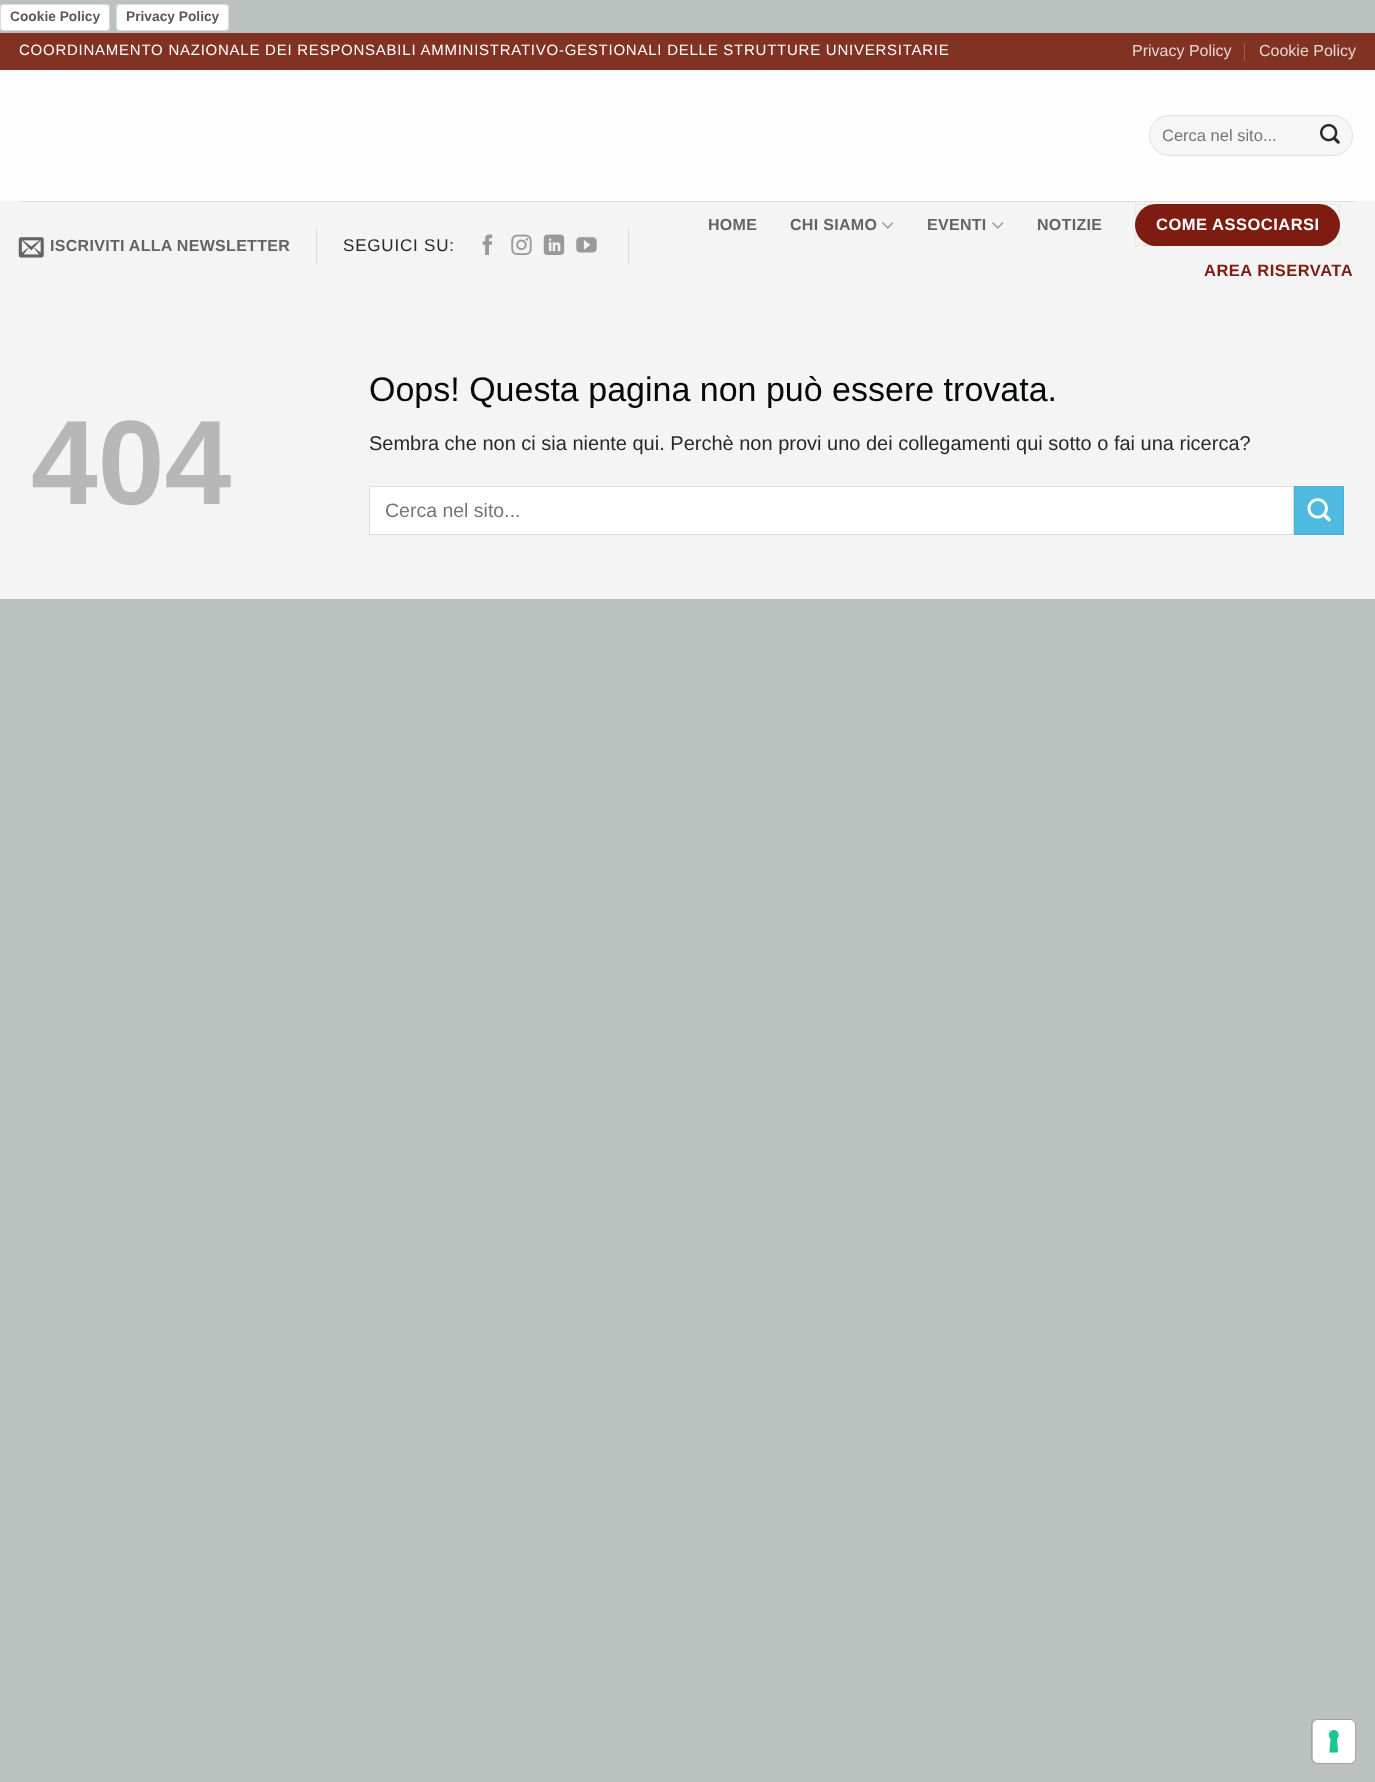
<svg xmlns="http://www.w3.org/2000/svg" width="1375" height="1782">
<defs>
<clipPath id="clip1"><rect x="1163" y="126" width="172" height="19"/></clipPath>
</defs>
<rect width="100%" height="100%" fill="#bac1be"/>
<rect y="4" width="110" height="27" rx="4" fill="#fff"/>
<rect x="0.5" y="4.5" width="109" height="26" rx="3.5" fill="none" stroke="#00000026"/>
<text x="10" y="21" style="font-family:Liberation Sans;font-size:13.75px;font-weight:bold;fill:#595959">Cookie Policy</text>
<rect x="118" y="6" width="110" height="25" rx="2.5" fill="#00000026" filter="blur(0.5px)"/>
<rect x="116" y="4" width="113" height="27" rx="4" fill="#fff"/>
<rect x="116.5" y="4.5" width="112" height="26" rx="3.5" fill="none" stroke="#00000026"/>
<text x="126" y="21" style="font-family:Liberation Sans;font-size:13.75px;font-weight:bold;fill:#595959">Privacy Policy</text>
<rect y="201" width="1375" height="398" fill="#f4f4f4"/>
<rect y="33" width="1375" height="37" fill="#823223"/>
<text x="19" y="55" style="font-family:Liberation Sans;font-size:15px;letter-spacing:0.75px;fill:#fff">COORDINAMENTO NAZIONALE DEI RESPONSABILI AMMINISTRATIVO-GESTIONALI DELLE STRUTTURE UNIVERSITARIE</text>
<text x="1132" y="56" style="font-family:Liberation Sans;font-size:16px;fill:#e6d6d3">Privacy Policy</text>
<rect x="1244" y="43" width="1" height="18" fill="#9b5b4f"/>
<text x="1259" y="56" style="font-family:Liberation Sans;font-size:16px;fill:#e6d6d3">Cookie Policy</text>
<rect y="70" width="1375" height="131" fill="#fefefe"/>
<rect x="1149" y="115" width="204" height="41" rx="20.5" fill="#f6f6f6"/>
<rect x="1149.5" y="115.5" width="203" height="40" rx="20" fill="none" stroke="#00000017"/>
<g clip-path="url(#clip1)">
<text x="1162" y="141" style="font-family:Liberation Sans;font-size:16.5px;fill:#757575">Cerca nel sito...</text>
</g>
<image x="1320" y="123" width="20" height="21" href="media/1.png"/>
<rect x="19" y="201" width="1337" height="1" fill="#e0e0e0"/>
<image x="18" y="237" width="26" height="21" href="media/2.png"/>
<text x="50" y="251" style="font-family:Liberation Sans;font-size:16px;font-weight:bold;letter-spacing:0.3px;fill:#646464">ISCRIVITI ALLA NEWSLETTER</text>
<rect x="316" y="228" width="1" height="37" fill="#dcdcdc"/>
<text x="343" y="251" style="font-family:Liberation Sans;font-size:17px;letter-spacing:0.8px;fill:#282828">SEGUICI SU:</text>
<image x="482" y="234" width="11" height="21" href="media/3.png"/>
<image x="511" y="234" width="21" height="21" href="media/4.png"/>
<image x="543" y="234" width="22" height="21" href="media/5.png"/>
<image x="576" y="237" width="21" height="16" href="media/6.png"/>
<rect x="628" y="228" width="1" height="37" fill="#dcdcdc"/>
<text x="708" y="230" style="font-family:Liberation Sans;font-size:16px;font-weight:bold;letter-spacing:0.3px;fill:#646464">HOME</text>
<text x="790" y="230" style="font-family:Liberation Sans;font-size:16px;font-weight:bold;letter-spacing:0.3px;fill:#646464">CHI SIAMO</text>
<image x="882" y="222" width="12" height="7" href="media/7.png"/>
<text x="927" y="230" style="font-family:Liberation Sans;font-size:16px;font-weight:bold;letter-spacing:0.3px;fill:#646464">EVENTI</text>
<image x="992" y="222" width="12" height="7" href="media/7.png"/>
<text x="1037" y="230" style="font-family:Liberation Sans;font-size:16px;font-weight:bold;letter-spacing:0.3px;fill:#646464">NOTIZIE</text>
<rect x="1135" y="204" width="205" height="42" rx="21" fill="#7e1c11"/>
<rect x="1135.5" y="204.5" width="204" height="41" fill="none" stroke="#0000000d"/>
<text x="1156" y="230" style="font-family:Liberation Sans;font-size:16.5px;font-weight:bold;letter-spacing:0.5px;fill:#fff">COME ASSOCIARSI</text>
<text x="1204" y="276" style="font-family:Liberation Sans;font-size:16.5px;font-weight:bold;letter-spacing:0.5px;fill:#7e1c11">AREA RISERVATA</text>
<text x="31" y="504" style="font-family:Liberation Sans;font-size:120px;font-weight:bold;fill:#b7b7b7">404</text>
<text x="369" y="401" style="font-family:Liberation Sans;font-size:34px;fill:#060707">Oops! Questa pagina non può essere trovata.</text>
<text x="369" y="450" style="font-family:Liberation Sans;font-size:20px;fill:#282828">Sembra che non ci sia niente qui. Perchè non provi uno dei collegamenti qui sotto o fai una ricerca?</text>
<rect x="369.5" y="486.5" width="924" height="48" fill="#fff" stroke="#ddd"/>
<text x="385" y="517" style="font-family:Liberation Sans;font-size:19.5px;fill:#757575">Cerca nel sito...</text>
<rect x="1294.5" y="486.5" width="49" height="48" fill="#50b9df" stroke="#4cb0d4"/>
<image x="1307" y="498" width="24" height="24" href="media/8.png"/>
<rect x="1311.5" y="1719.5" width="44" height="44" rx="5.5" fill="none" stroke="#9ea4a2"/>
<rect x="1313" y="1720" width="42" height="43" rx="5" fill="#fff"/>
<image x="1328" y="1730" width="11" height="23" href="media/9.png"/>
</svg>
